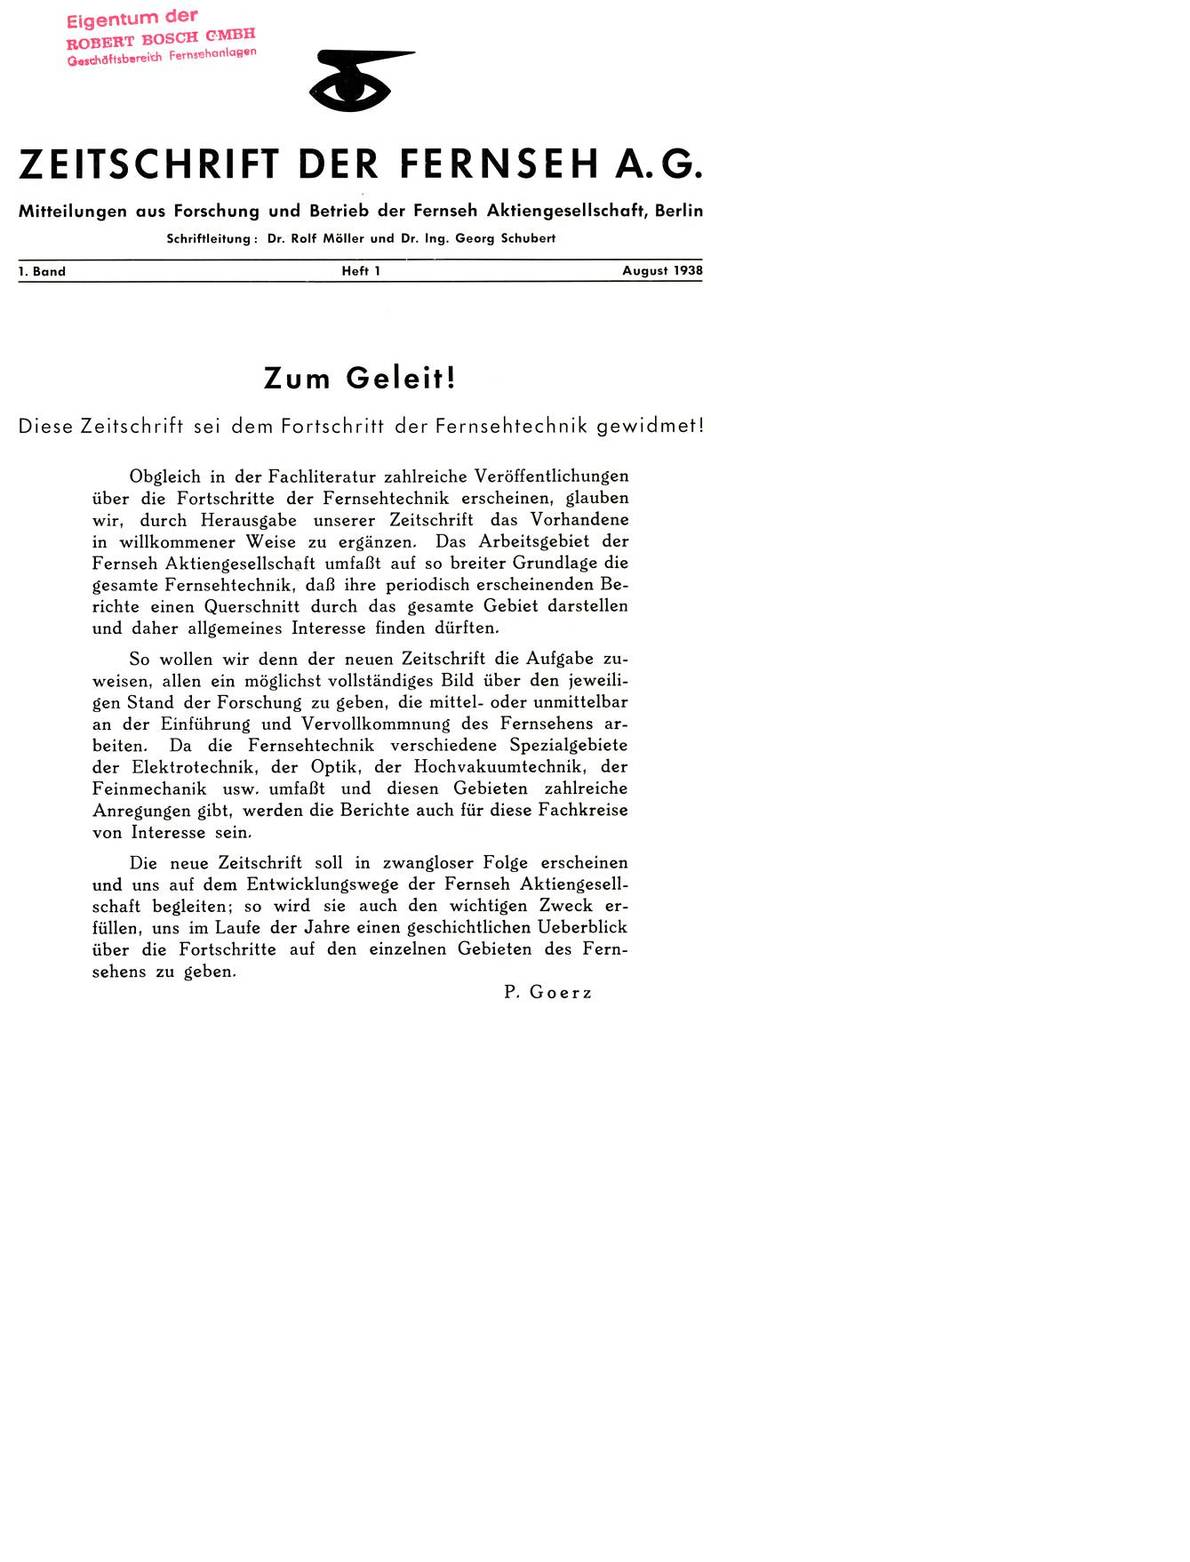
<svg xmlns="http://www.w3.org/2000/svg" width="1190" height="1562">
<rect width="100%" height="100%" fill="#fff"/>
<image x="15" y="0" width="696" height="1003" href="media/1.png"/>
</svg>
